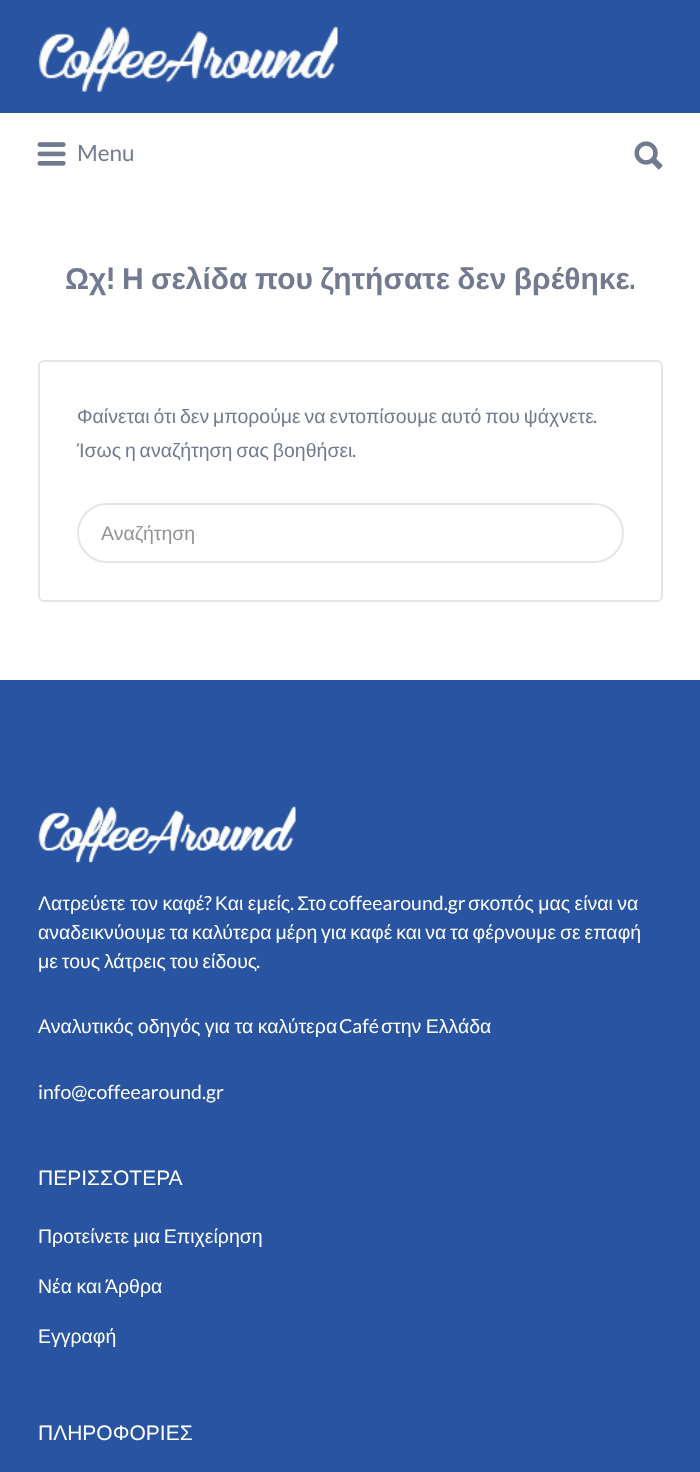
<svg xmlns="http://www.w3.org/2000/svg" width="700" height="1472">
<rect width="100%" height="100%" fill="#fff"/>
<rect width="700" height="113" fill="#2854a1"/>
<image x="38" y="26" width="300" height="67" href="media/1.png"/>
<image x="37" y="142" width="29" height="24" href="media/2.png"/>
<text x="77" y="161" style="font-family:Lato;font-size:22.5px;fill:#717a8f">Menu</text>
<image x="634" y="141" width="29" height="29" href="media/3.png"/>
<text x="65" y="289" style="font-family:Liberation Sans;font-size:30px;font-weight:bold;fill:#717a8f">Ωχ</text>
<text x="106" y="289" style="font-family:Raleway;font-size:30px;font-weight:bold;fill:#717a8f">!</text>
<text x="122" y="289" word-spacing="-1" style="font-family:Liberation Sans;font-size:30px;font-weight:bold;fill:#717a8f">Η σελίδα</text>
<text x="255" y="289" word-spacing="-1" style="font-family:Liberation Sans;font-size:30px;font-weight:bold;fill:#717a8f">που ζητήσατε δεν βρέθηκε</text>
<text x="629" y="289" style="font-family:Raleway;font-size:30px;font-weight:bold;fill:#717a8f">.</text>
<rect x="39" y="361" width="623" height="240" rx="5" fill="none" stroke="#e5e5e5" stroke-width="2"/>
<text x="77" y="423" word-spacing="-1.6" style="font-family:Liberation Sans;font-size:19.5px;fill:#717a8f">Φαίνεται ότι δεν μπορούμε να εντοπίσουμε αυτό που ψάχνετε</text>
<text x="593" y="423" style="font-family:Lato;font-size:19.5px;fill:#717a8f">.</text>
<text x="77" y="457" word-spacing="-1.6" style="font-family:Liberation Sans;font-size:19.5px;fill:#717a8f">Ίσως η αναζήτηση σας βοηθήσει</text>
<text x="352" y="457" style="font-family:Lato;font-size:19.5px;fill:#717a8f">.</text>
<rect x="78" y="504" width="545" height="58" rx="29" fill="none" stroke="#e5e5e5" stroke-width="2"/>
<text x="101" y="540" style="font-family:Liberation Sans;font-size:19.5px;fill:#939393">Αναζήτηση</text>
<rect y="680" width="700" height="792" fill="#2854a1"/>
<image x="38" y="806" width="258" height="57" href="media/4.png"/>
<text x="38" y="910" word-spacing="-1" style="font-family:Liberation Sans;font-size:19.5px;fill:#fff">Λατρεύετε τον καφέ</text>
<text x="204" y="910" style="font-family:Lato;font-size:19.5px;fill:#fff">?</text>
<text x="215" y="910" word-spacing="-1" style="font-family:Liberation Sans;font-size:19.5px;fill:#fff">Και εμείς</text>
<text x="290" y="910" style="font-family:Lato;font-size:19.5px;fill:#fff">.</text>
<text x="297" y="910" style="font-family:Liberation Sans;font-size:19.5px;fill:#fff">Στο</text>
<text x="329" y="910" style="font-family:Lato;font-size:19.5px;fill:#fff">coffeearound.gr</text>
<text x="468" y="910" word-spacing="-1" style="font-family:Liberation Sans;font-size:19.5px;fill:#fff">σκοπός μας είναι να</text>
<text x="38" y="939" word-spacing="-1.6" style="font-family:Liberation Sans;font-size:19.5px;fill:#fff">αναδεικνύουμε τα καλύτερα μέρη για καφέ και να τα φέρνουμε σε επαφή</text>
<text x="38" y="968" word-spacing="-1.6" style="font-family:Liberation Sans;font-size:19.5px;fill:#fff">με τους λάτρεις του είδους</text>
<text x="256" y="968" style="font-family:Lato;font-size:19.5px;fill:#fff">.</text>
<text x="38" y="1033" word-spacing="-1" style="font-family:Liberation Sans;font-size:19.5px;fill:#fff">Αναλυτικός οδηγός για τα καλύτερα</text>
<text x="339" y="1033" style="font-family:Lato;font-size:19.5px;fill:#fff">Café</text>
<text x="381" y="1033" word-spacing="-1" style="font-family:Liberation Sans;font-size:19.5px;fill:#fff">στην Ελλάδα</text>
<text x="38" y="1099" style="font-family:Lato;font-size:19.5px;fill:#fff">info@coffeearound.gr</text>
<text x="38" y="1185" style="font-family:Liberation Sans;font-size:21px;fill:#fff">ΠΕΡΙΣΣΟΤΕΡΑ</text>
<text x="38" y="1243" word-spacing="-1.6" style="font-family:Liberation Sans;font-size:19.5px;fill:#fff">Προτείνετε μια Επιχείρηση</text>
<text x="38" y="1293" word-spacing="-1" style="font-family:Liberation Sans;font-size:19.5px;fill:#fff">Νέα και Άρθρα</text>
<text x="38" y="1343" style="font-family:Liberation Sans;font-size:19.5px;fill:#fff">Εγγραφή</text>
<text x="38" y="1440" style="font-family:Liberation Sans;font-size:21px;fill:#fff">ΠΛΗΡΟΦΟΡΙΕΣ</text>
</svg>
